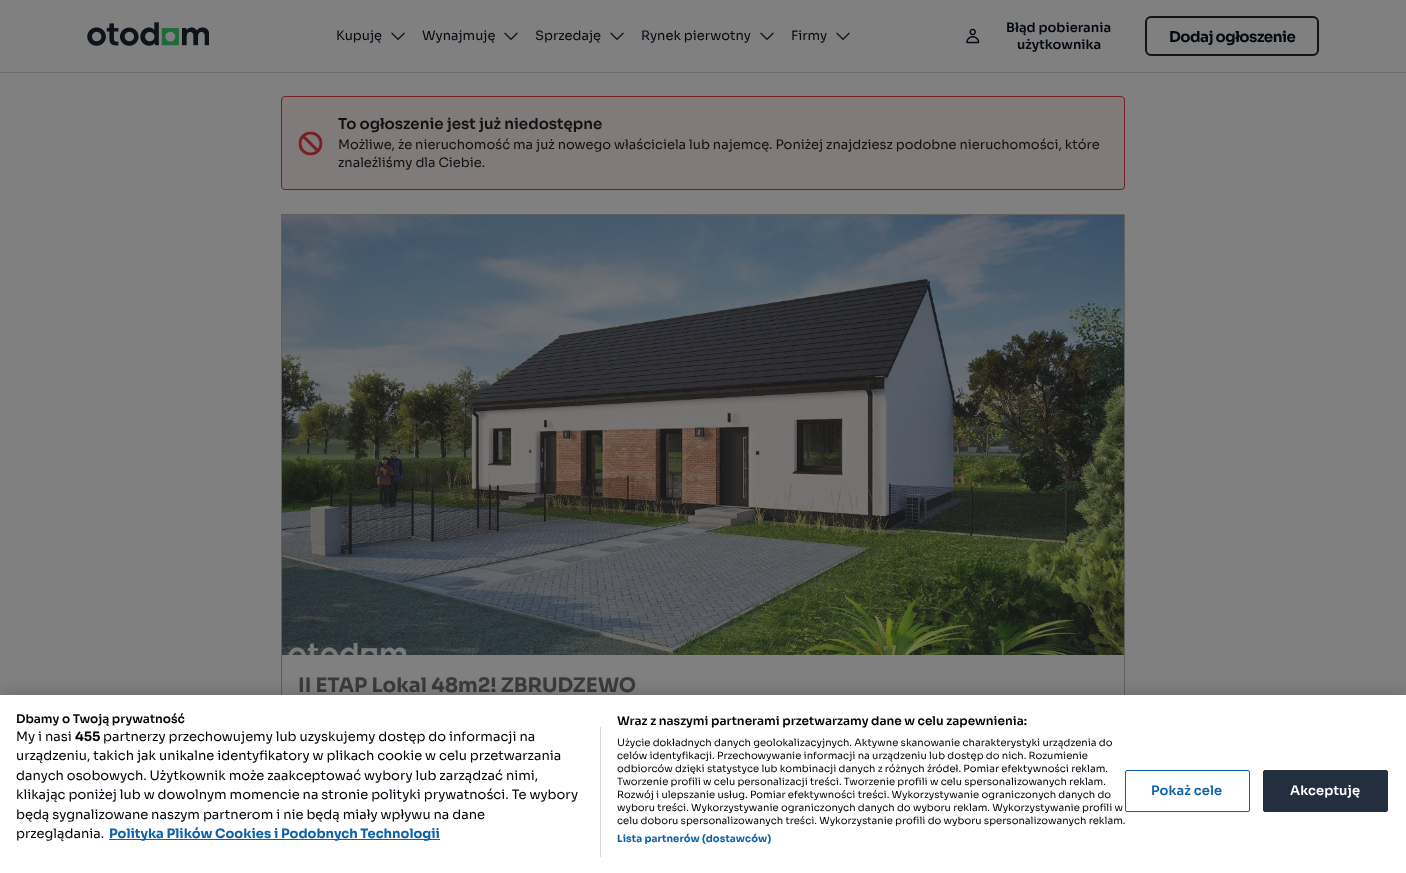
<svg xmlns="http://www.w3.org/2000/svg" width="1406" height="873">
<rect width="100%" height="100%" fill="#808080"/>
<rect y="72" width="1406" height="1" fill="#6a6b6d"/>
<image x="87" y="22" width="122" height="24" href="media/1.png"/>
<text x="336" y="40" style="font-family:Sora;font-size:13px;fill:#040911">Kupuję</text>
<image x="391" y="32" width="14" height="8" href="media/2.png"/>
<text x="422" y="40" style="font-family:Sora;font-size:13px;fill:#040911">Wynajmuję</text>
<image x="504" y="32" width="14" height="8" href="media/2.png"/>
<text x="535" y="40" style="font-family:Sora;font-size:13px;fill:#040911">Sprzedaję</text>
<image x="610" y="32" width="14" height="8" href="media/2.png"/>
<text x="641" y="40" style="font-family:Sora;font-size:13px;fill:#040911">Rynek pierwotny</text>
<image x="760" y="32" width="14" height="8" href="media/2.png"/>
<text x="791" y="40" style="font-family:Sora;font-size:13px;fill:#040911">Firmy</text>
<image x="836" y="32" width="14" height="8" href="media/2.png"/>
<image x="966" y="28" width="14" height="16" href="media/3.png"/>
<text x="1006" y="32" style="font-family:Sora;font-size:13px;font-weight:600;fill:#040911">Błąd pobierania</text>
<text x="1017" y="49" style="font-family:Sora;font-size:13px;font-weight:600;fill:#040911">użytkownika</text>
<rect x="1146" y="17" width="172" height="38" rx="5" fill="none" stroke="#0e131c" stroke-width="2"/>
<text x="1169" y="42" style="font-family:Sora;font-size:15px;font-weight:bold;letter-spacing:-0.5px;fill:#040911">Dodaj ogłoszenie</text>
<rect x="281.5" y="96.5" width="843" height="93" rx="3.5" fill="#807a7a" stroke="#772024"/>
<image x="298" y="131" width="25" height="25" href="media/4.png"/>
<text x="338" y="129" style="font-family:Sora;font-size:15px;font-weight:600;fill:#111">To ogłoszenie jest już niedostępne</text>
<text x="338" y="149" style="font-family:Sora;font-size:13px;fill:#111">Możliwe, że nieruchomość ma już nowego właściciela lub najemcę. Poniżej znajdziesz podobne nieruchomości, które</text>
<text x="338" y="167" style="font-family:Sora;font-size:13px;fill:#111">znaleźliśmy dla Ciebie.</text>
<rect x="281.5" y="214.5" width="843" height="521" fill="none" stroke="#5f5f5f"/>
<image x="282" y="215" width="842" height="440" href="media/5.png"/>
<text x="298" y="692" style="font-family:Sora;font-size:20px;font-weight:bold;fill:#3b3b3b">II ETAP Lokal 48m2! ZBRUDZEWO</text>
<rect y="695" width="1406" height="178" fill="#00000033" filter="blur(9px)"/>
<rect y="695" width="1406" height="178" fill="#fff"/>
<text x="16" y="723" style="font-family:Sora;font-size:12px;font-weight:600;fill:#020309">Dbamy o Twoją prywatność</text>
<text x="617" y="725" style="font-family:Sora;font-size:12px;font-weight:600;fill:#020309">Wraz z naszymi partnerami przetwarzamy dane w celu zapewnienia:</text>
<text x="617" y="746" style="font-family:Sora;font-size:10px;fill:#020309">Użycie dokładnych danych geolokalizacyjnych. Aktywne skanowanie charakterystyki urządzenia do</text>
<text x="617" y="759" style="font-family:Sora;font-size:10px;fill:#020309">celów identyfikacji. Przechowywanie informacji na urządzeniu lub dostęp do nich. Rozumienie</text>
<text x="617" y="772" style="font-family:Sora;font-size:10px;fill:#020309">odbiorców dzięki statystyce lub kombinacji danych z różnych źródeł. Pomiar efektywności reklam.</text>
<text x="617" y="785" style="font-family:Sora;font-size:10px;fill:#020309">Tworzenie profili w celu personalizacji treści. Tworzenie profili w celu spersonalizowanych reklam.</text>
<text x="617" y="798" style="font-family:Sora;font-size:10px;fill:#020309">Rozwój i ulepszanie usług. Pomiar efektywności treści. Wykorzystywanie ograniczonych danych do</text>
<text x="617" y="811" style="font-family:Sora;font-size:10px;fill:#020309">wyboru treści. Wykorzystywanie ograniczonych danych do wyboru reklam. Wykorzystywanie profili w</text>
<text x="617" y="824" style="font-family:Sora;font-size:10px;fill:#020309">celu doboru spersonalizowanych treści. Wykorzystanie profili do wyboru spersonalizowanych reklam.</text>
<text x="617" y="842" style="font-family:Sora;font-size:10px;font-weight:bold;letter-spacing:0.1px;fill:#0d61ab">Lista partnerów (dostawców)</text>
<rect x="600" y="727" width="1" height="130" fill="#d8d8d8"/>
<text x="16" y="741" style="font-family:Sora;font-size:13px;fill:#020309">My i nasi</text>
<text x="75" y="741" style="font-family:Sora;font-size:13px;font-weight:bold;fill:#020309">455</text>
<text x="103" y="741" style="font-family:Sora;font-size:13px;fill:#020309">partnerzy przechowujemy lub uzyskujemy dostęp do informacji na</text>
<text x="16" y="760" style="font-family:Sora;font-size:13px;fill:#020309">urządzeniu, takich jak unikalne identyfikatory w plikach cookie w celu przetwarzania</text>
<text x="16" y="780" style="font-family:Sora;font-size:13px;fill:#020309">danych osobowych. Użytkownik może zaakceptować wybory lub zarządzać nimi,</text>
<text x="16" y="799" style="font-family:Sora;font-size:13px;fill:#020309">klikając poniżej lub w dowolnym momencie na stronie polityki prywatności. Te wybory</text>
<text x="16" y="819" style="font-family:Sora;font-size:13px;fill:#020309">będą sygnalizowane naszym partnerom i nie będą miały wpływu na dane</text>
<text x="16" y="838" style="font-family:Sora;font-size:13px;fill:#020309">przeglądania.</text>
<rect x="109" y="839" width="331" height="1" fill="#0d61ab"/>
<text x="109" y="838" style="font-family:Sora;font-size:13px;font-weight:bold;fill:#0d61ab">Polityka Plików Cookies i Podobnych Technologii</text>
<rect x="1125.5" y="770.5" width="124" height="41" rx="1.5" fill="none" stroke="#0d61ab"/>
<text x="1151" y="795" style="font-family:Sora;font-size:13px;font-weight:600;letter-spacing:0.1px;fill:#0d61ab">Pokaż cele</text>
<rect x="1263.5" y="770.5" width="124" height="41" rx="1.5" fill="#232e3f" stroke="#232e3f"/>
<text x="1290" y="795" style="font-family:Sora;font-size:13px;font-weight:600;letter-spacing:0.1px;fill:#fff">Akceptuję</text>
</svg>
